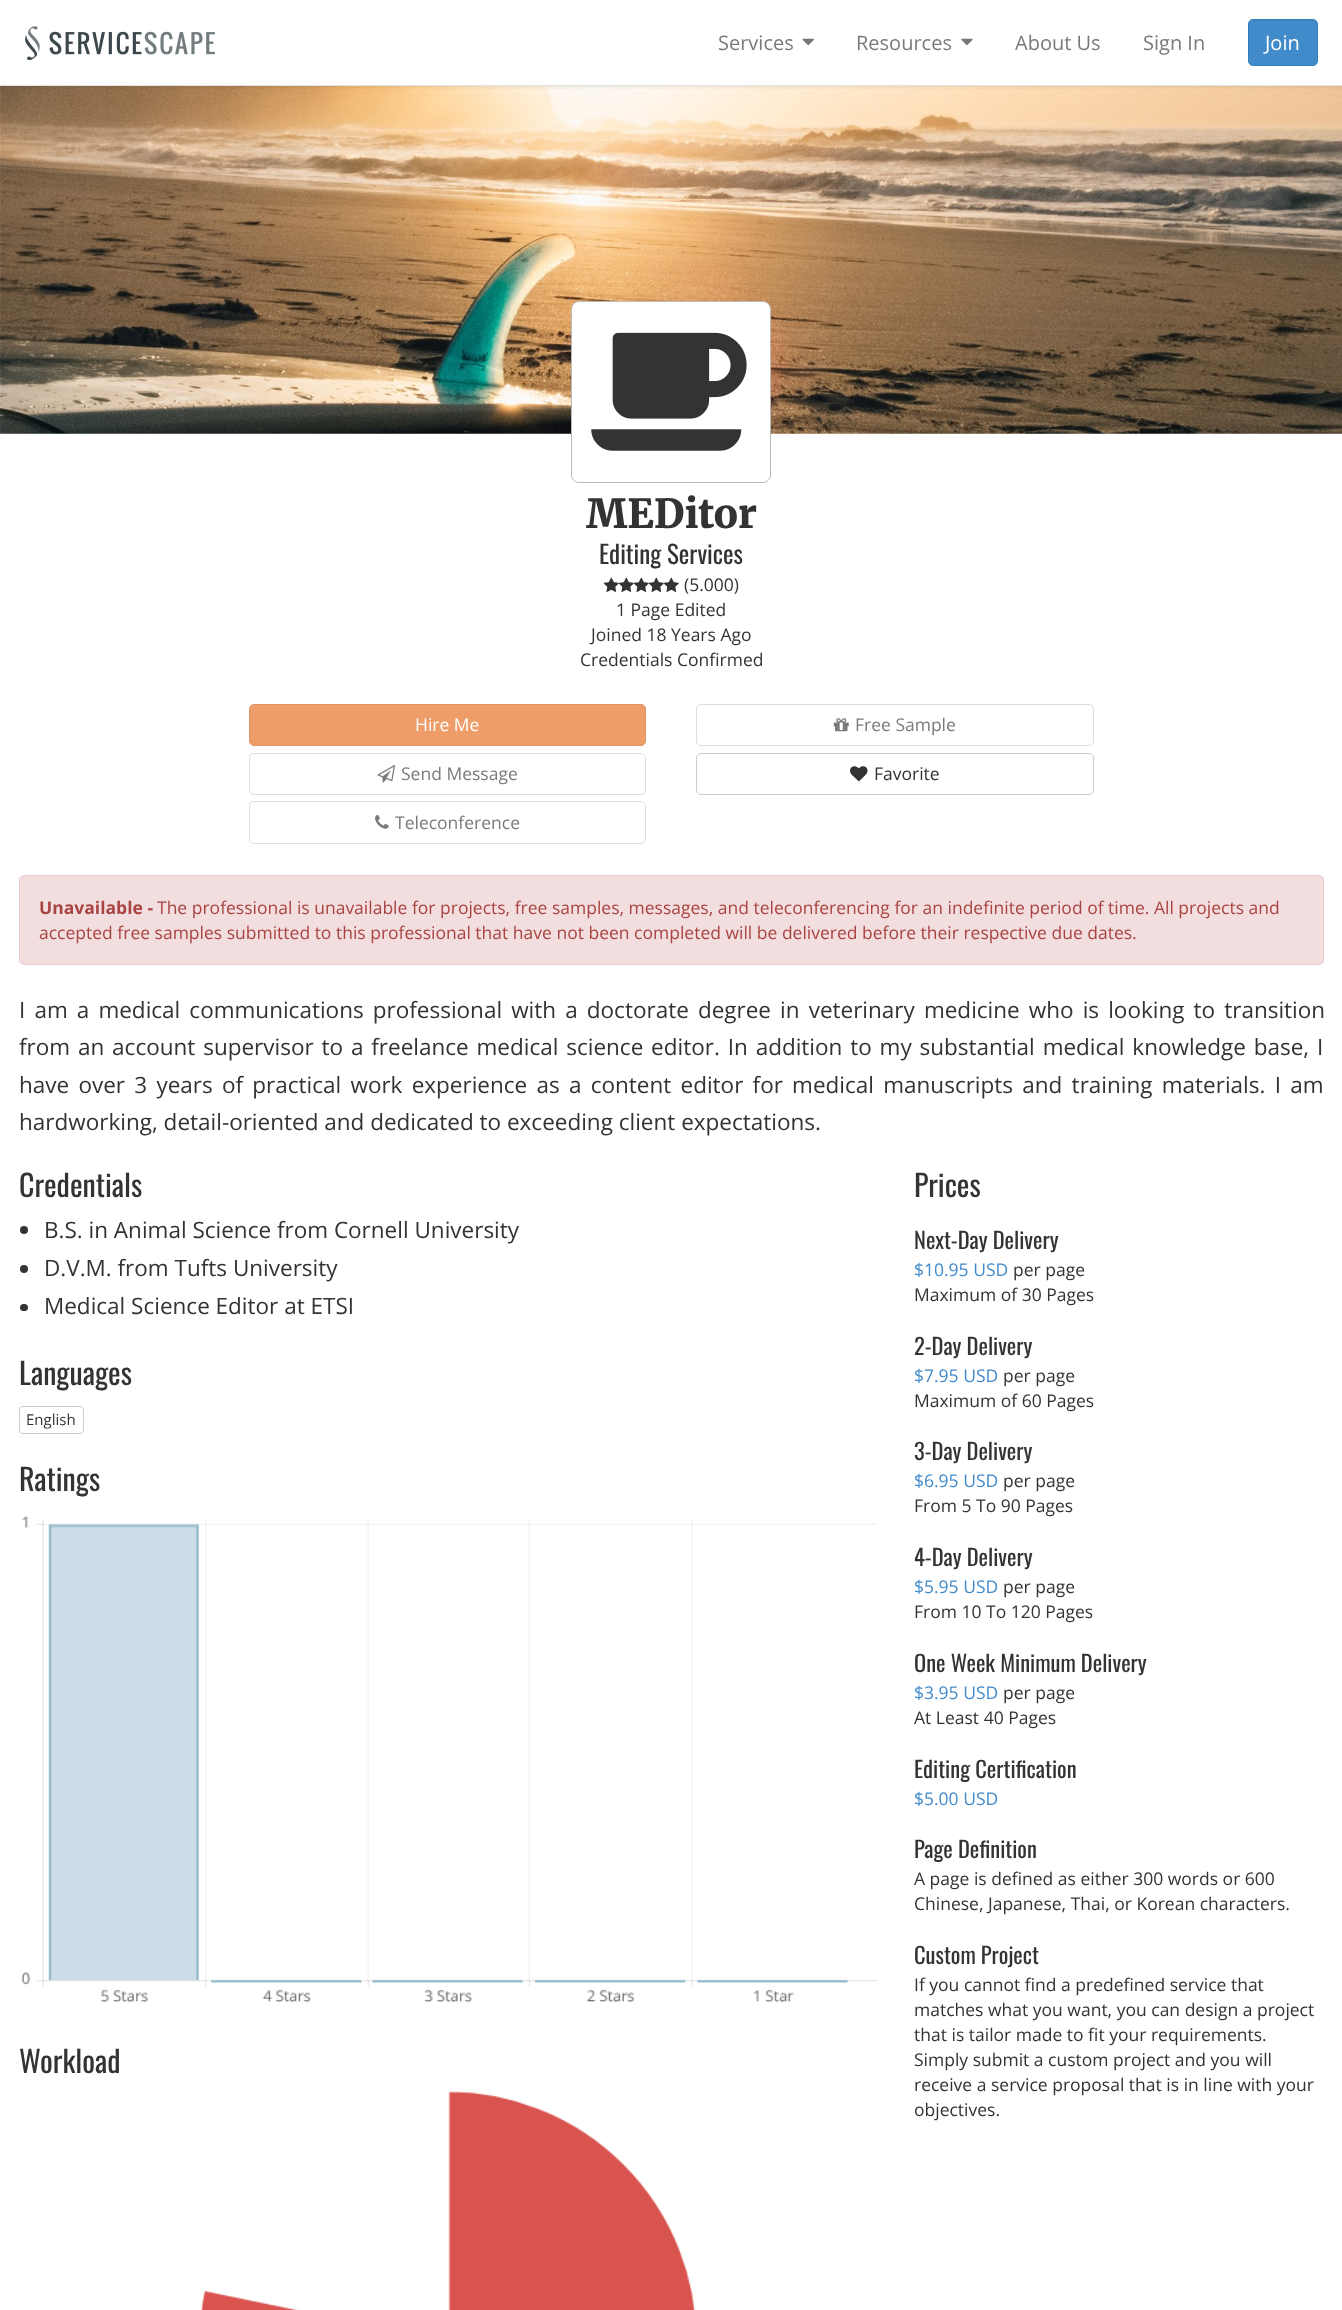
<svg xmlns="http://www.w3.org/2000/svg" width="1342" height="2310">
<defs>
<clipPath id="clip1"><rect x="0" y="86" width="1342" height="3"/></clipPath>
</defs>
<rect width="100%" height="100%" fill="#fff"/>
<image x="0" y="86" width="1342" height="348" href="media/4.png"/>
<g clip-path="url(#clip1)">
<rect y="3" width="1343" height="85" fill="#0000000f" filter="blur(2px)"/>
</g>
<path d="M0 85v1h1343v-85h-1v84z" fill="#e3e3e3"/>
<image x="25" y="26" width="190" height="34" href="media/1.png"/>
<text x="718" y="50" style="font-family:Open Sans;font-size:20px;fill:#7a7a7a">Services</text>
<image x="802" y="38" width="12" height="8" href="media/2.png"/>
<text x="856" y="50" style="font-family:Open Sans;font-size:20px;fill:#7a7a7a">Resources</text>
<image x="961" y="38" width="12" height="8" href="media/3.png"/>
<text x="1015" y="50" style="font-family:Open Sans;font-size:20px;fill:#7a7a7a">About Us</text>
<text x="1143" y="50" style="font-family:Open Sans;font-size:20px;fill:#7a7a7a">Sign In</text>
<rect x="1248.5" y="19.5" width="69" height="46" rx="4.5" fill="#428bca" stroke="#357ebd"/>
<text x="1265" y="50" style="font-family:Open Sans;font-size:20px;fill:#fff">Join</text>
<rect x="571.5" y="301.5" width="199" height="181" rx="7.5" fill="#fff" stroke="#b9b9b9"/>
<image x="591" y="332" width="156" height="119" href="media/5.png"/>
<text x="586" y="528" style="font-family:Merriweather;font-size:40px;font-weight:300;fill:#333">MEDitor</text>
<text x="599" y="564" style="font-family:Oswald;font-size:25px;fill:#333">Editing Services</text>
<image x="603" y="577" width="16" height="15" href="media/6.png"/>
<image x="618" y="577" width="16" height="15" href="media/7.png"/>
<image x="633" y="577" width="16" height="15" href="media/7.png"/>
<image x="648" y="577" width="16" height="15" href="media/7.png"/>
<image x="663" y="577" width="16" height="15" href="media/7.png"/>
<text x="684" y="591" style="font-family:Open Sans;font-size:17.5px;fill:#333">(5.000)</text>
<text x="616" y="616" style="font-family:Open Sans;font-size:17.5px;fill:#333">1 Page Edited</text>
<text x="591" y="641" style="font-family:Open Sans;font-size:17.5px;fill:#333">Joined 18 Years Ago</text>
<text x="580" y="666" style="font-family:Open Sans;font-size:17.5px;fill:#333">Credentials Confirmed</text>
<rect x="249.5" y="704.5" width="396" height="41" rx="4.5" fill="#ee9c68" stroke="#de9466"/>
<text x="415" y="731" style="font-family:Open Sans;font-size:17.5px;fill:#fff">Hire Me</text>
<rect x="249.5" y="753.5" width="396" height="41" rx="4.5" fill="none" stroke="#dedede"/>
<image x="377" y="765" width="18" height="18" href="media/8.png"/>
<text x="401" y="780" style="font-family:Open Sans;font-size:17.5px;fill:#7a7a7a">Send Message</text>
<rect x="249.5" y="801.5" width="396" height="42" rx="4.5" fill="none" stroke="#dedede"/>
<image x="375" y="815" width="14" height="14" href="media/9.png"/>
<text x="395" y="829" style="font-family:Open Sans;font-size:17.5px;fill:#7a7a7a">Teleconference</text>
<rect x="696.5" y="704.5" width="397" height="41" rx="4.5" fill="none" stroke="#dedede"/>
<image x="833" y="718" width="16" height="14" href="media/10.png"/>
<text x="855" y="731" style="font-family:Open Sans;font-size:17.5px;fill:#7a7a7a">Free Sample</text>
<rect x="696.5" y="753.5" width="397" height="41" rx="4.5" fill="none" stroke="#ccc"/>
<image x="850" y="766" width="18" height="16" href="media/11.png"/>
<text x="874" y="780" style="font-family:Open Sans;font-size:17.5px;fill:#333">Favorite</text>
<rect x="19.5" y="875.5" width="1304" height="89" rx="4.5" fill="#f2dede" stroke="#ebccd1"/>
<text x="39" y="914" style="font-family:Open Sans;font-size:17.5px;font-weight:bold;fill:#a94442">Unavailable -</text>
<text x="157" y="914" style="font-family:Open Sans;font-size:17.5px;fill:#a94442">The professional is unavailable for projects, free samples, messages, and teleconferencing for an indefinite period of time. All projects and</text>
<text x="39" y="939" style="font-family:Open Sans;font-size:17.5px;fill:#a94442">accepted free samples submitted to this professional that have not been completed will be delivered before their respective due dates.</text>
<text x="19" y="1018" word-spacing="3.25" style="font-family:Open Sans;font-size:22.5px;fill:#333">I am a medical communications professional with a doctorate degree in veterinary medicine who is looking to transition</text>
<text x="19" y="1055" word-spacing="2" style="font-family:Open Sans;font-size:22.5px;fill:#333">from an account supervisor to a freelance medical science editor. In addition to my substantial medical knowledge base, I</text>
<text x="19" y="1093" word-spacing="3.4" style="font-family:Open Sans;font-size:22.5px;fill:#333">have over 3 years of practical work experience as a content editor for medical manuscripts and training materials. I am</text>
<text x="19" y="1130" style="font-family:Open Sans;font-size:22.5px;fill:#333">hardworking, detail-oriented and dedicated to exceeding client expectations.</text>
<text x="19" y="1197" style="font-family:Oswald;font-size:30px;fill:#333">Credentials</text>
<circle cx="24" cy="1230" r="4" fill="#333"/>
<text x="44" y="1238" style="font-family:Open Sans;font-size:22.5px;fill:#333">B.S. in Animal Science from Cornell University</text>
<circle cx="24" cy="1269" r="4" fill="#333"/>
<text x="44" y="1276" style="font-family:Open Sans;font-size:22.5px;fill:#333">D.V.M. from Tufts University</text>
<rect x="20" y="1304" width="8" height="7" rx="3.5" fill="#333"/>
<text x="44" y="1314" style="font-family:Open Sans;font-size:22.5px;fill:#333">Medical Science Editor at ETSI</text>
<text x="19" y="1385" style="font-family:Oswald;font-size:30px;fill:#333">Languages</text>
<rect x="19.5" y="1406.5" width="64" height="27" rx="3.5" fill="none" stroke="#ccc"/>
<text x="26" y="1425" style="font-family:Open Sans;font-size:15px;fill:#333">English</text>
<text x="19" y="1491" style="font-family:Oswald;font-size:30px;fill:#333">Ratings</text>
<image x="21" y="1516" width="857" height="487" href="media/12.png"/>
<text x="19" y="2073" style="font-family:Oswald;font-size:30px;fill:#333">Workload</text>
<image x="201" y="2091" width="495" height="219" href="media/13.png"/>
<text x="914" y="1197" style="font-family:Oswald;font-size:30px;fill:#333">Prices</text>
<text x="914" y="1249" style="font-family:Oswald;font-size:22.5px;fill:#333">Next-Day Delivery</text>
<text x="914" y="1276" style="font-family:Open Sans;font-size:17.5px;fill:#428bca">$10.95 USD</text>
<text x="1013" y="1276" style="font-family:Open Sans;font-size:17.5px;fill:#333">per page</text>
<text x="914" y="1301" style="font-family:Open Sans;font-size:17.5px;fill:#333">Maximum of 30 Pages</text>
<text x="914" y="1355" style="font-family:Oswald;font-size:22.5px;fill:#333">2-Day Delivery</text>
<text x="914" y="1382" style="font-family:Open Sans;font-size:17.5px;fill:#428bca">$7.95 USD</text>
<text x="1003" y="1382" style="font-family:Open Sans;font-size:17.5px;fill:#333">per page</text>
<text x="914" y="1407" style="font-family:Open Sans;font-size:17.5px;fill:#333">Maximum of 60 Pages</text>
<text x="914" y="1460" style="font-family:Oswald;font-size:22.5px;fill:#333">3-Day Delivery</text>
<text x="914" y="1487" style="font-family:Open Sans;font-size:17.5px;fill:#428bca">$6.95 USD</text>
<text x="1003" y="1487" style="font-family:Open Sans;font-size:17.5px;fill:#333">per page</text>
<text x="914" y="1512" style="font-family:Open Sans;font-size:17.5px;fill:#333">From 5 To 90 Pages</text>
<text x="914" y="1566" style="font-family:Oswald;font-size:22.5px;fill:#333">4-Day Delivery</text>
<text x="914" y="1593" style="font-family:Open Sans;font-size:17.5px;fill:#428bca">$5.95 USD</text>
<text x="1003" y="1593" style="font-family:Open Sans;font-size:17.5px;fill:#333">per page</text>
<text x="914" y="1618" style="font-family:Open Sans;font-size:17.5px;fill:#333">From 10 To 120 Pages</text>
<text x="914" y="1672" style="font-family:Oswald;font-size:22.5px;fill:#333">One Week Minimum Delivery</text>
<text x="914" y="1699" style="font-family:Open Sans;font-size:17.5px;fill:#428bca">$3.95 USD</text>
<text x="1003" y="1699" style="font-family:Open Sans;font-size:17.5px;fill:#333">per page</text>
<text x="914" y="1724" style="font-family:Open Sans;font-size:17.5px;fill:#333">At Least 40 Pages</text>
<text x="914" y="1778" style="font-family:Oswald;font-size:22.5px;fill:#333">Editing Certification</text>
<text x="914" y="1805" style="font-family:Open Sans;font-size:17.5px;fill:#428bca">$5.00 USD</text>
<text x="914" y="1858" style="font-family:Oswald;font-size:22.5px;fill:#333">Page Definition</text>
<text x="914" y="1885" style="font-family:Open Sans;font-size:17.5px;fill:#333">A page is defined as either 300 words or 600</text>
<text x="914" y="1910" style="font-family:Open Sans;font-size:17.5px;fill:#333">Chinese, Japanese, Thai, or Korean characters.</text>
<text x="914" y="1964" style="font-family:Oswald;font-size:22.5px;fill:#333">Custom Project</text>
<text x="914" y="1991" style="font-family:Open Sans;font-size:17.5px;fill:#333">If you cannot find a predefined service that</text>
<text x="914" y="2016" style="font-family:Open Sans;font-size:17.5px;fill:#333">matches what you want, you can design a project</text>
<text x="914" y="2041" style="font-family:Open Sans;font-size:17.5px;fill:#333">that is tailor made to fit your requirements.</text>
<text x="914" y="2066" style="font-family:Open Sans;font-size:17.5px;fill:#333">Simply submit a custom project and you will</text>
<text x="914" y="2091" style="font-family:Open Sans;font-size:17.5px;fill:#333">receive a service proposal that is in line with your</text>
<text x="914" y="2116" style="font-family:Open Sans;font-size:17.5px;fill:#333">objectives.</text>
</svg>
